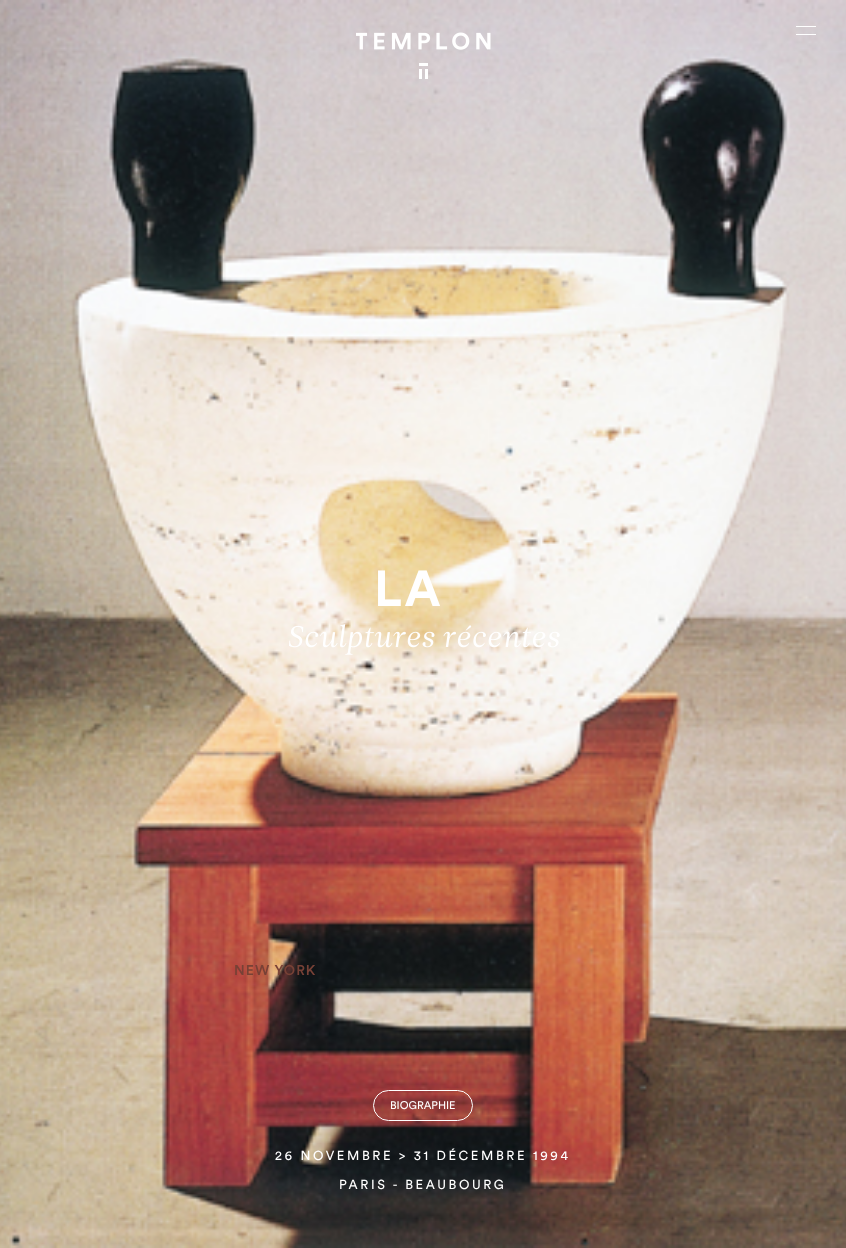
<svg xmlns="http://www.w3.org/2000/svg" width="846" height="1248">
<rect width="100%" height="100%" fill="#fff"/>
<image x="0" y="0" width="846" height="1248" href="media/2.png"/>
<rect x="796" y="26" width="20" height="1" fill="#fff"/>
<rect x="796" y="34" width="20" height="1" fill="#fff"/>
<image x="356" y="32" width="135" height="18" href="media/1.png"/>
<rect x="419" y="69" width="3" height="10" fill="#fff"/>
<rect x="425" y="69" width="3" height="10" fill="#fff"/>
<rect x="419" y="63" width="9" height="3" fill="#fff"/>
<text x="374" y="606" style="font-family:Circular;font-size:50px;font-weight:bold;letter-spacing:2px;fill:#fff">LA</text>
<image x="289" y="624" width="271" height="31" href="media/3.png"/>
<rect x="373.5" y="1090.5" width="99" height="30" rx="15" fill="none" stroke="#fff"/>
<text x="390" y="1109" style="font-family:Circular;font-size:11px;fill:#fff">BIOGRAPHIE</text>
<text x="275" y="1160" style="font-family:Circular;font-size:13px;letter-spacing:2.6px;fill:#fff">26 NOVEMBRE &gt; 31 DÉCEMBRE 1994</text>
<text x="339" y="1189" style="font-family:Circular;font-size:13px;letter-spacing:2.6px;fill:#fff">PARIS - BEAUBOURG</text>
<text x="234" y="975" style="font-family:Circular;font-size:14px;font-weight:500;letter-spacing:1px;fill:#774136">NEW YORK</text>
</svg>
